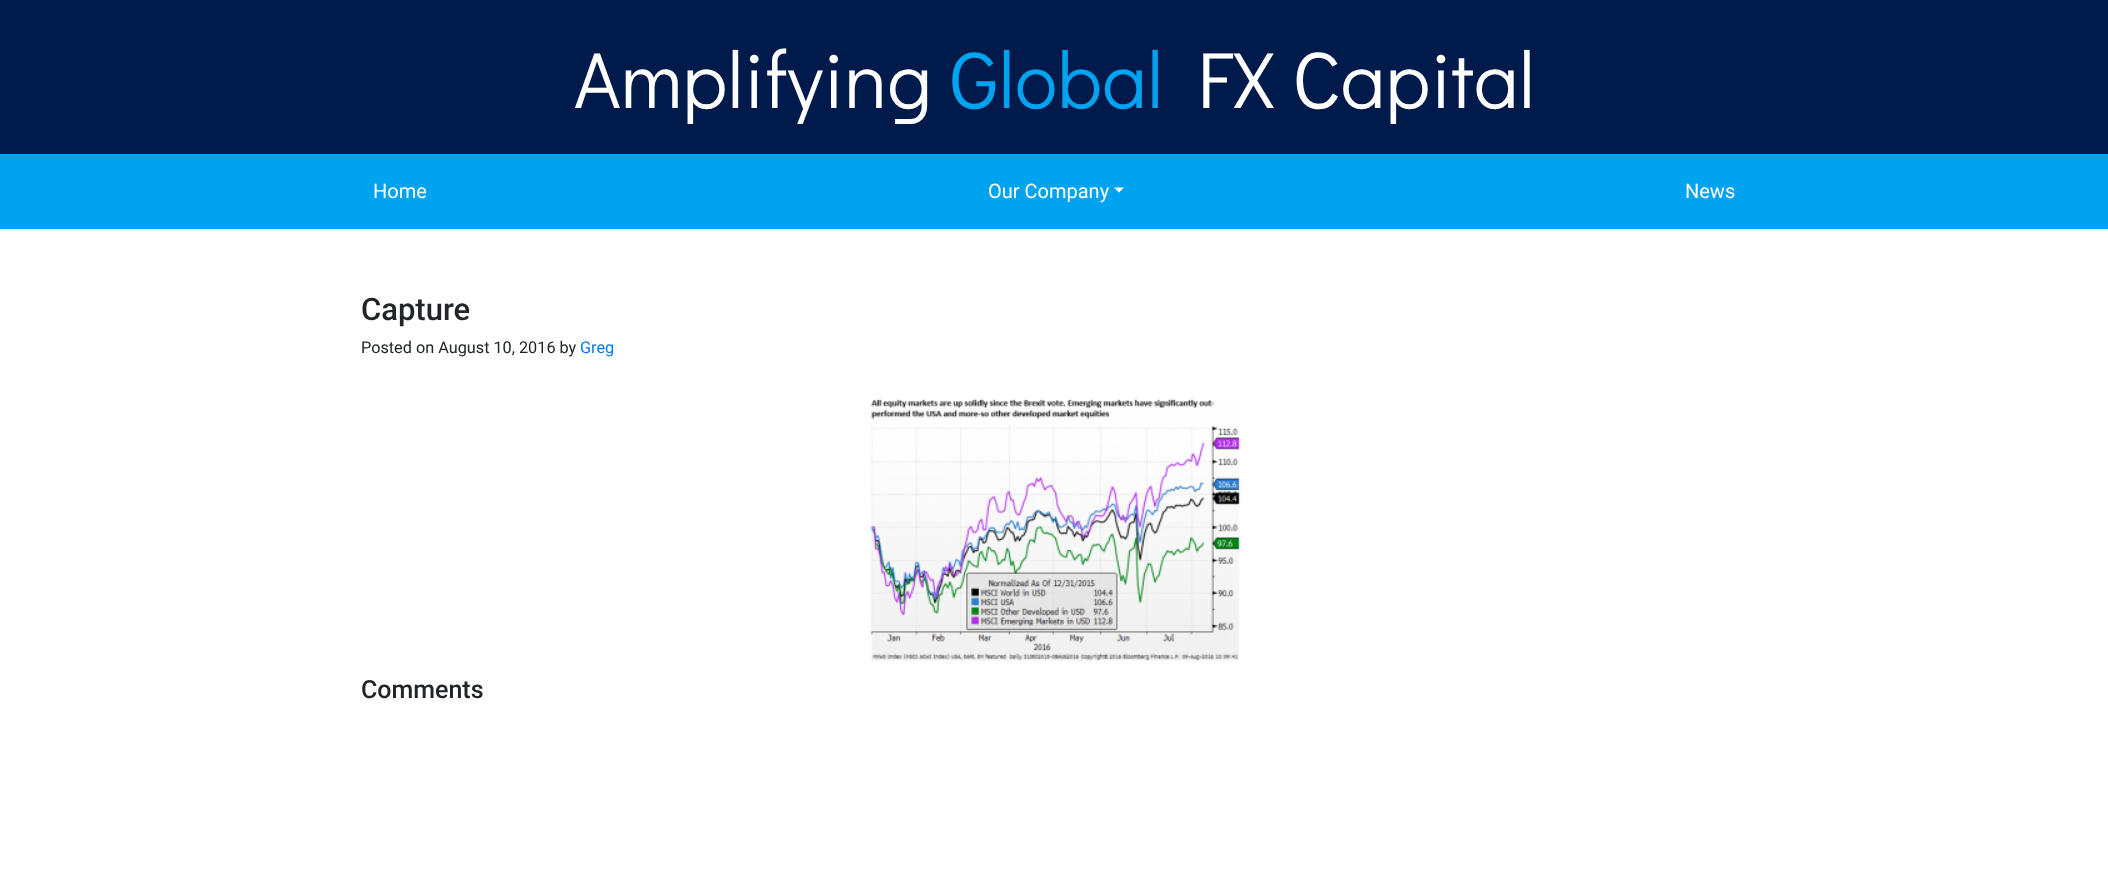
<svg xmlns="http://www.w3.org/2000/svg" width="2108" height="874">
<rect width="100%" height="100%" fill="#fff"/>
<rect y="154" width="2108" height="75" fill="#00a3ef"/>
<rect width="2108" height="154" fill="#001b4b"/>
<text x="574" y="108" style="font-family:Didact Gothic;font-size:80px;fill:#fff">Amplifying</text>
<text x="950" y="108" style="font-family:Didact Gothic;font-size:80px;fill:#00a3ef">Global</text>
<text x="1197" y="108" style="font-family:Didact Gothic;font-size:80px;fill:#fff">FX Capital</text>
<text x="373" y="198" style="font-family:Roboto;font-size:20px;fill:#fff">Home</text>
<text x="988" y="198" style="font-family:Roboto;font-size:20px;fill:#fff">Our Company</text>
<path d="M1114 187.5h10l-5 5z" fill="#fff"/>
<text x="1685" y="198" style="font-family:Roboto;font-size:20px;fill:#fff">News</text>
<text x="361" y="320" style="font-family:Roboto;font-size:31px;font-weight:500;fill:#212529">Capture</text>
<text x="361" y="353" style="font-family:Roboto;font-size:16.25px;fill:#212529">Posted on August 10, 2016 by</text>
<text x="580" y="353" style="font-family:Roboto;font-size:16.25px;fill:#007bff">Greg</text>
<image x="871" y="398" width="370" height="263" href="media/1.png"/>
<text x="361" y="698" style="font-family:Roboto;font-size:25px;font-weight:500;fill:#212529">Comments</text>
</svg>
